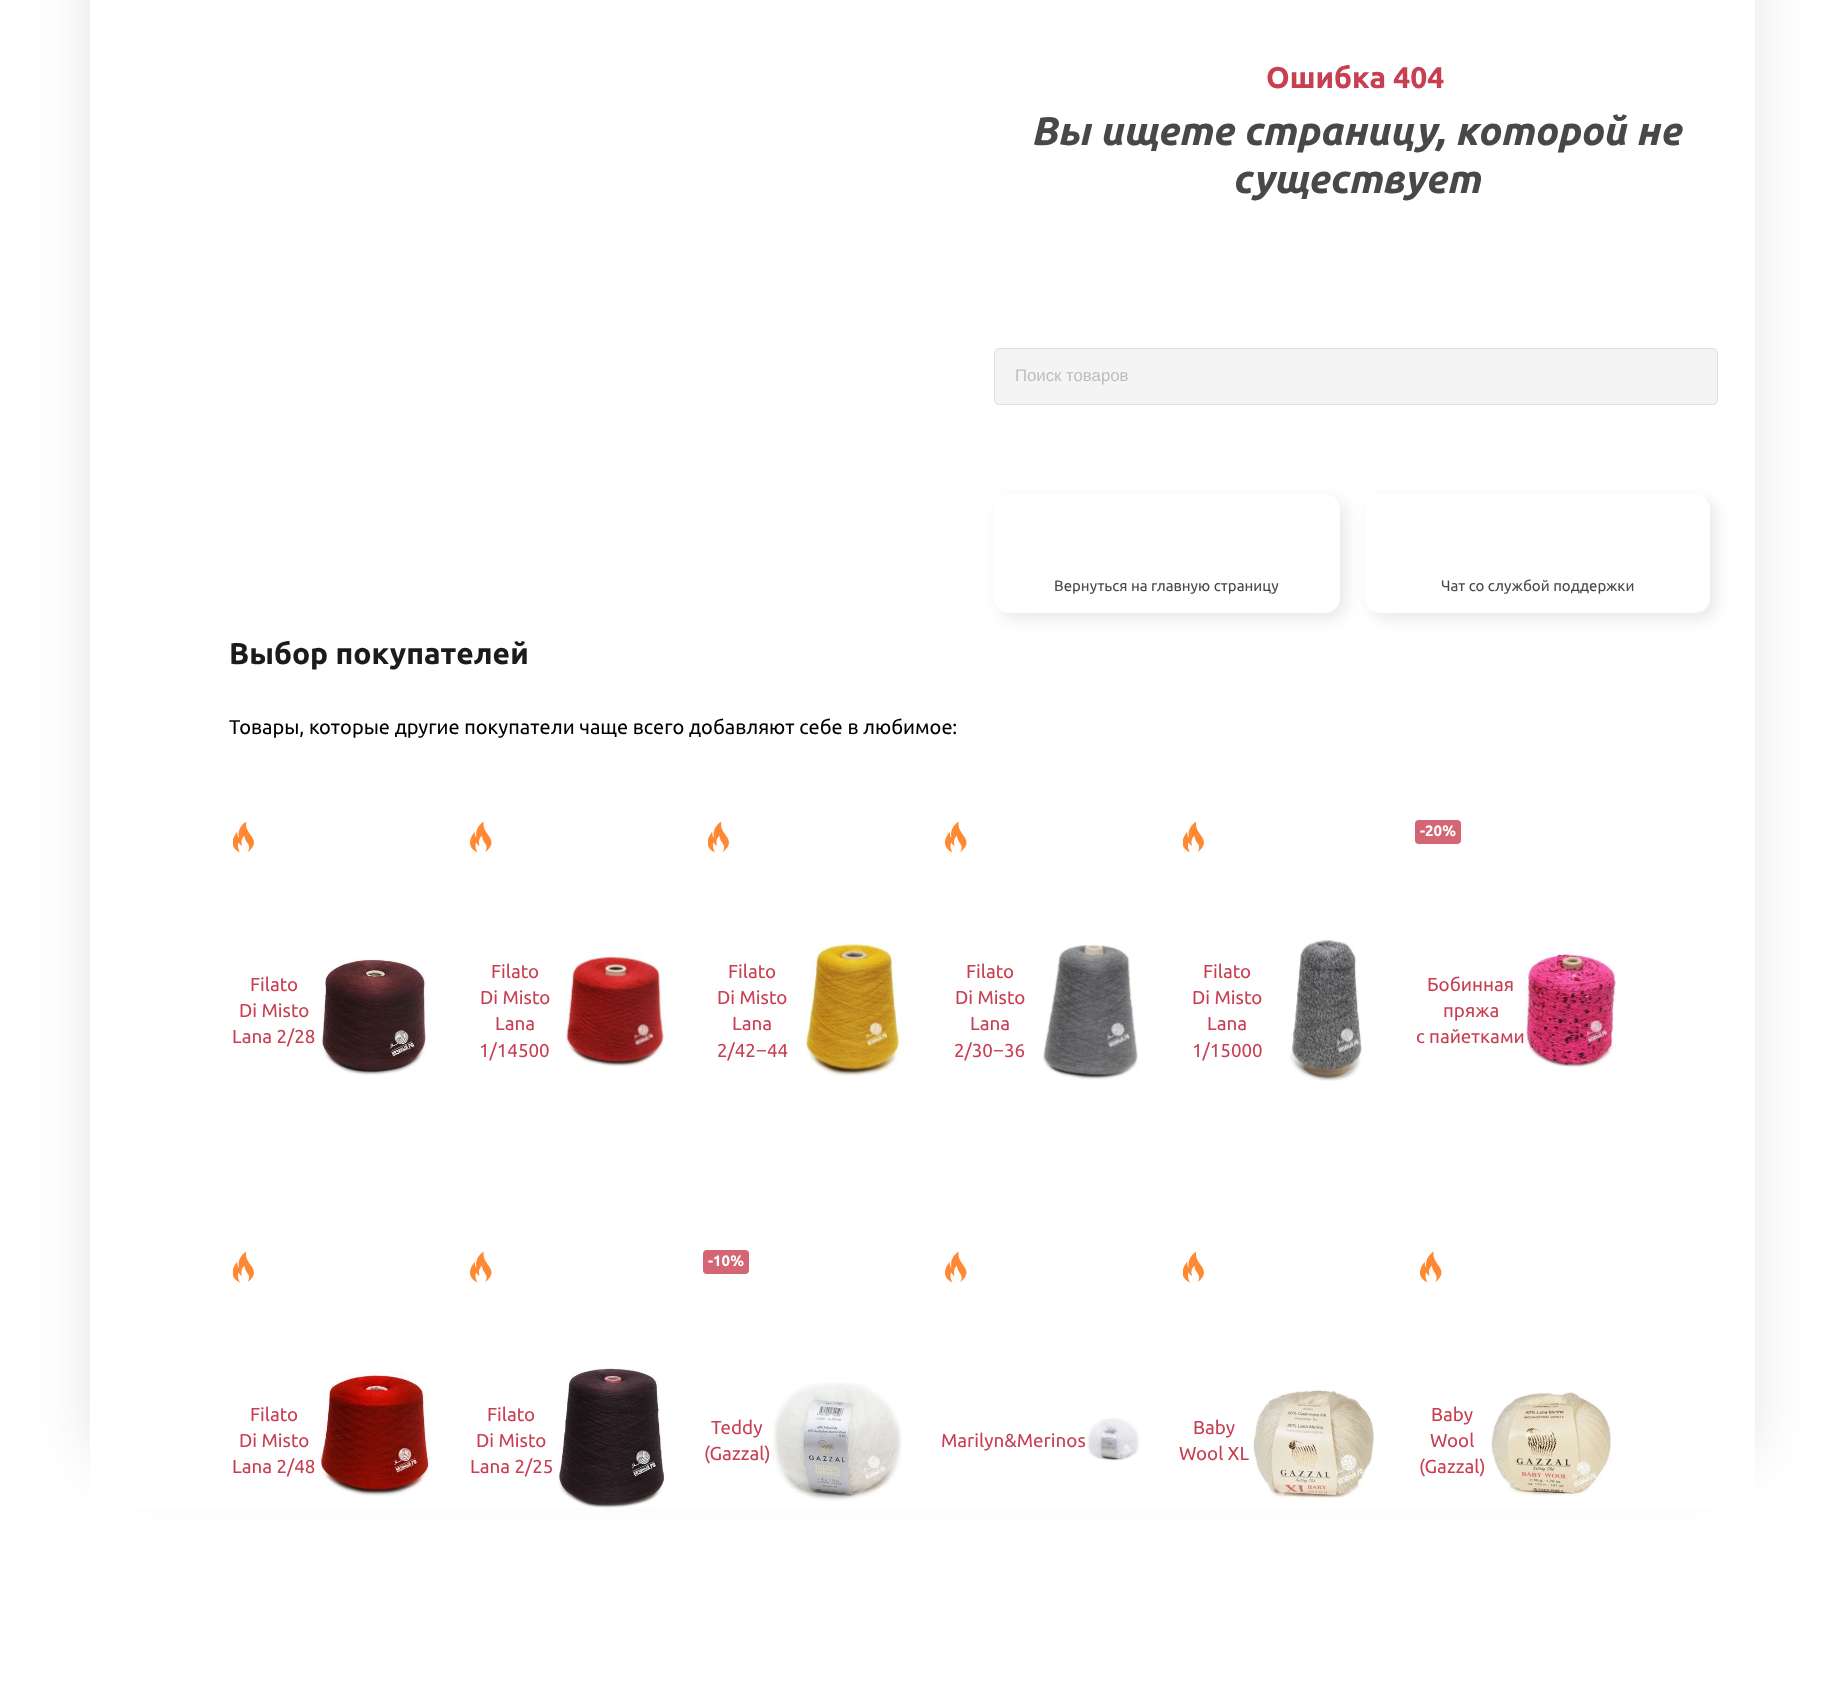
<svg xmlns="http://www.w3.org/2000/svg" width="1845" height="1701">
<defs>
<clipPath id="clip1"><path d="M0 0h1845v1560h-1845zm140-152h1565c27.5 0 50 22.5 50 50v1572h-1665v-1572c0-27.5 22.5-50 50-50z" clip-rule="evenodd"/></clipPath>
</defs>
<rect width="100%" height="100%" fill="#fff"/>
<g clip-path="url(#clip1)">
<rect x="90" y="-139" width="1665" height="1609" rx="50" fill="#0000001a" filter="blur(29.5px)"/>
</g>
<text x="1266" y="88" style="font-family:Ubuntu;font-size:30px;font-weight:bold;fill:#c83f51">Ошибка 404</text>
<text x="1031" y="145" style="font-family:Ubuntu;font-size:40px;font-weight:bold;font-style:italic;fill:#484848">Вы ищете страницу, которой не</text>
<text x="1232" y="193" style="font-family:Ubuntu;font-size:40px;font-weight:bold;font-style:italic;fill:#484848">существует</text>
<rect x="994.5" y="348.5" width="723" height="56" rx="4.5" fill="#f4f4f4" stroke="#dfdfdf"/>
<text x="1015" y="381" style="font-family:Liberation Sans;font-size:16.75px;fill:#bdbdbd">Поиск товаров</text>
<rect x="1000" y="500" width="346" height="119" rx="15" fill="#e6e6e6e6" filter="blur(8px)"/>
<rect x="994" y="494" width="346" height="119" rx="15" fill="#fff"/>
<text x="1054" y="591" style="font-family:Ubuntu;font-size:15px;fill:#484848">Вернуться на главную страницу</text>
<rect x="1371" y="500" width="345" height="119" rx="15" fill="#e6e6e6e6" filter="blur(8px)"/>
<rect x="1365" y="494" width="345" height="119" rx="15" fill="#fff"/>
<text x="1441" y="591" style="font-family:Ubuntu;font-size:15px;fill:#484848">Чат со службой поддержки</text>
<rect x="90" y="1470" width="1665" height="38" fill="#fff"/>
<text x="229" y="664" style="font-family:Ubuntu;font-size:30px;font-weight:bold;fill:#1b1b1b">Выбор покупателей</text>
<text x="229" y="734" style="font-family:Ubuntu;font-size:20px;fill:#000">Товары, которые другие покупатели чаще всего добавляют себе в любимое:</text>
<image x="233" y="821" width="21" height="32" href="media/1.png"/>
<text x="250" y="991" style="font-family:Ubuntu;font-size:18.75px;fill:#c83f51">Filato</text>
<text x="239" y="1017" style="font-family:Ubuntu;font-size:18.75px;fill:#c83f51">Di Misto</text>
<text x="232" y="1043" style="font-family:Ubuntu;font-size:18.75px;fill:#c83f51">Lana 2/28</text>
<image x="319" y="958" width="108" height="118" href="media/2.png"/>
<image x="470" y="821" width="22" height="32" href="media/3.png"/>
<text x="491" y="978" style="font-family:Ubuntu;font-size:18.75px;fill:#c83f51">Filato</text>
<text x="480" y="1004" style="font-family:Ubuntu;font-size:18.75px;fill:#c83f51">Di Misto</text>
<text x="495" y="1030" style="font-family:Ubuntu;font-size:18.75px;fill:#c83f51">Lana</text>
<text x="479" y="1057" style="font-family:Ubuntu;font-size:18.75px;fill:#c83f51">1/14500</text>
<image x="564" y="954" width="102" height="113" href="media/4.png"/>
<image x="708" y="821" width="21" height="32" href="media/1.png"/>
<text x="728" y="978" style="font-family:Ubuntu;font-size:18.75px;fill:#c83f51">Filato</text>
<text x="717" y="1004" style="font-family:Ubuntu;font-size:18.75px;fill:#c83f51">Di Misto</text>
<text x="732" y="1030" style="font-family:Ubuntu;font-size:18.75px;fill:#c83f51">Lana</text>
<text x="717" y="1057" style="font-family:Ubuntu;font-size:18.75px;fill:#c83f51">2/42</text>
<text x="756" y="1057" style="font-family:Liberation Sans;font-size:18.75px;fill:#c83f51">−</text>
<text x="767" y="1057" style="font-family:Ubuntu;font-size:18.75px;fill:#c83f51">44</text>
<image x="803" y="940" width="98" height="136" href="media/5.png"/>
<image x="945" y="821" width="22" height="32" href="media/3.png"/>
<text x="966" y="978" style="font-family:Ubuntu;font-size:18.75px;fill:#c83f51">Filato</text>
<text x="955" y="1004" style="font-family:Ubuntu;font-size:18.75px;fill:#c83f51">Di Misto</text>
<text x="970" y="1030" style="font-family:Ubuntu;font-size:18.75px;fill:#c83f51">Lana</text>
<text x="954" y="1057" style="font-family:Ubuntu;font-size:18.75px;fill:#c83f51">2/30</text>
<text x="993" y="1057" style="font-family:Liberation Sans;font-size:18.75px;fill:#c83f51">−</text>
<text x="1004" y="1057" style="font-family:Ubuntu;font-size:18.75px;fill:#c83f51">36</text>
<image x="1042" y="944" width="96" height="136" href="media/6.png"/>
<image x="1183" y="821" width="21" height="32" href="media/1.png"/>
<text x="1203" y="978" style="font-family:Ubuntu;font-size:18.75px;fill:#c83f51">Filato</text>
<text x="1192" y="1004" style="font-family:Ubuntu;font-size:18.75px;fill:#c83f51">Di Misto</text>
<text x="1207" y="1030" style="font-family:Ubuntu;font-size:18.75px;fill:#c83f51">Lana</text>
<text x="1192" y="1057" style="font-family:Ubuntu;font-size:18.75px;fill:#c83f51">1/15000</text>
<image x="1289" y="939" width="73" height="142" href="media/7.png"/>
<rect x="1415" y="820" width="46" height="24" rx="4" fill="#d36574"/>
<text x="1420" y="836" style="font-family:Ubuntu;font-size:15px;font-weight:bold;fill:#fff">-20%</text>
<text x="1427" y="991" style="font-family:Ubuntu;font-size:18.75px;fill:#c83f51">Бобинная</text>
<text x="1443" y="1017" style="font-family:Ubuntu;font-size:18.75px;fill:#c83f51">пряжа</text>
<text x="1416" y="1043" style="font-family:Ubuntu;font-size:18.75px;fill:#c83f51">с пайетками</text>
<image x="1525" y="953" width="92" height="114" href="media/8.png"/>
<image x="233" y="1251" width="21" height="32" href="media/1.png"/>
<text x="250" y="1421" style="font-family:Ubuntu;font-size:18.75px;fill:#c83f51">Filato</text>
<text x="239" y="1447" style="font-family:Ubuntu;font-size:18.75px;fill:#c83f51">Di Misto</text>
<text x="232" y="1473" style="font-family:Ubuntu;font-size:18.75px;fill:#c83f51">Lana 2/48</text>
<image x="319" y="1371" width="110" height="125" href="media/9.png"/>
<image x="470" y="1251" width="22" height="32" href="media/3.png"/>
<text x="487" y="1421" style="font-family:Ubuntu;font-size:18.75px;fill:#c83f51">Filato</text>
<text x="476" y="1447" style="font-family:Ubuntu;font-size:18.75px;fill:#c83f51">Di Misto</text>
<text x="470" y="1473" style="font-family:Ubuntu;font-size:18.75px;fill:#c83f51">Lana 2/25</text>
<image x="558" y="1367" width="107" height="141" href="media/10.png"/>
<rect x="703" y="1250" width="46" height="24" rx="4" fill="#d36574"/>
<text x="708" y="1266" style="font-family:Ubuntu;font-size:15px;font-weight:bold;fill:#fff">-10%</text>
<text x="711" y="1434" style="font-family:Ubuntu;font-size:18.75px;fill:#c83f51">Teddy</text>
<text x="704" y="1460" style="font-family:Ubuntu;font-size:18.75px;fill:#c83f51">(Gazzal)</text>
<image x="773" y="1382" width="129" height="119" href="media/11.png"/>
<image x="945" y="1251" width="22" height="32" href="media/3.png"/>
<text x="941" y="1447" style="font-family:Ubuntu;font-size:18.75px;fill:#c83f51">Marilyn&amp;Merinos</text>
<image x="1087" y="1418" width="52" height="43" href="media/12.png"/>
<image x="1183" y="1251" width="21" height="32" href="media/1.png"/>
<text x="1193" y="1434" style="font-family:Ubuntu;font-size:18.75px;fill:#c83f51">Baby</text>
<text x="1179" y="1460" style="font-family:Ubuntu;font-size:18.75px;fill:#c83f51">Wool XL</text>
<image x="1248" y="1389" width="126" height="111" href="media/13.png"/>
<image x="1420" y="1251" width="22" height="32" href="media/3.png"/>
<text x="1431" y="1421" style="font-family:Ubuntu;font-size:18.75px;fill:#c83f51">Baby</text>
<text x="1430" y="1447" style="font-family:Ubuntu;font-size:18.75px;fill:#c83f51">Wool</text>
<text x="1419" y="1473" style="font-family:Ubuntu;font-size:18.75px;fill:#c83f51">(Gazzal)</text>
<image x="1490" y="1390" width="122" height="106" href="media/14.png"/>
</svg>
